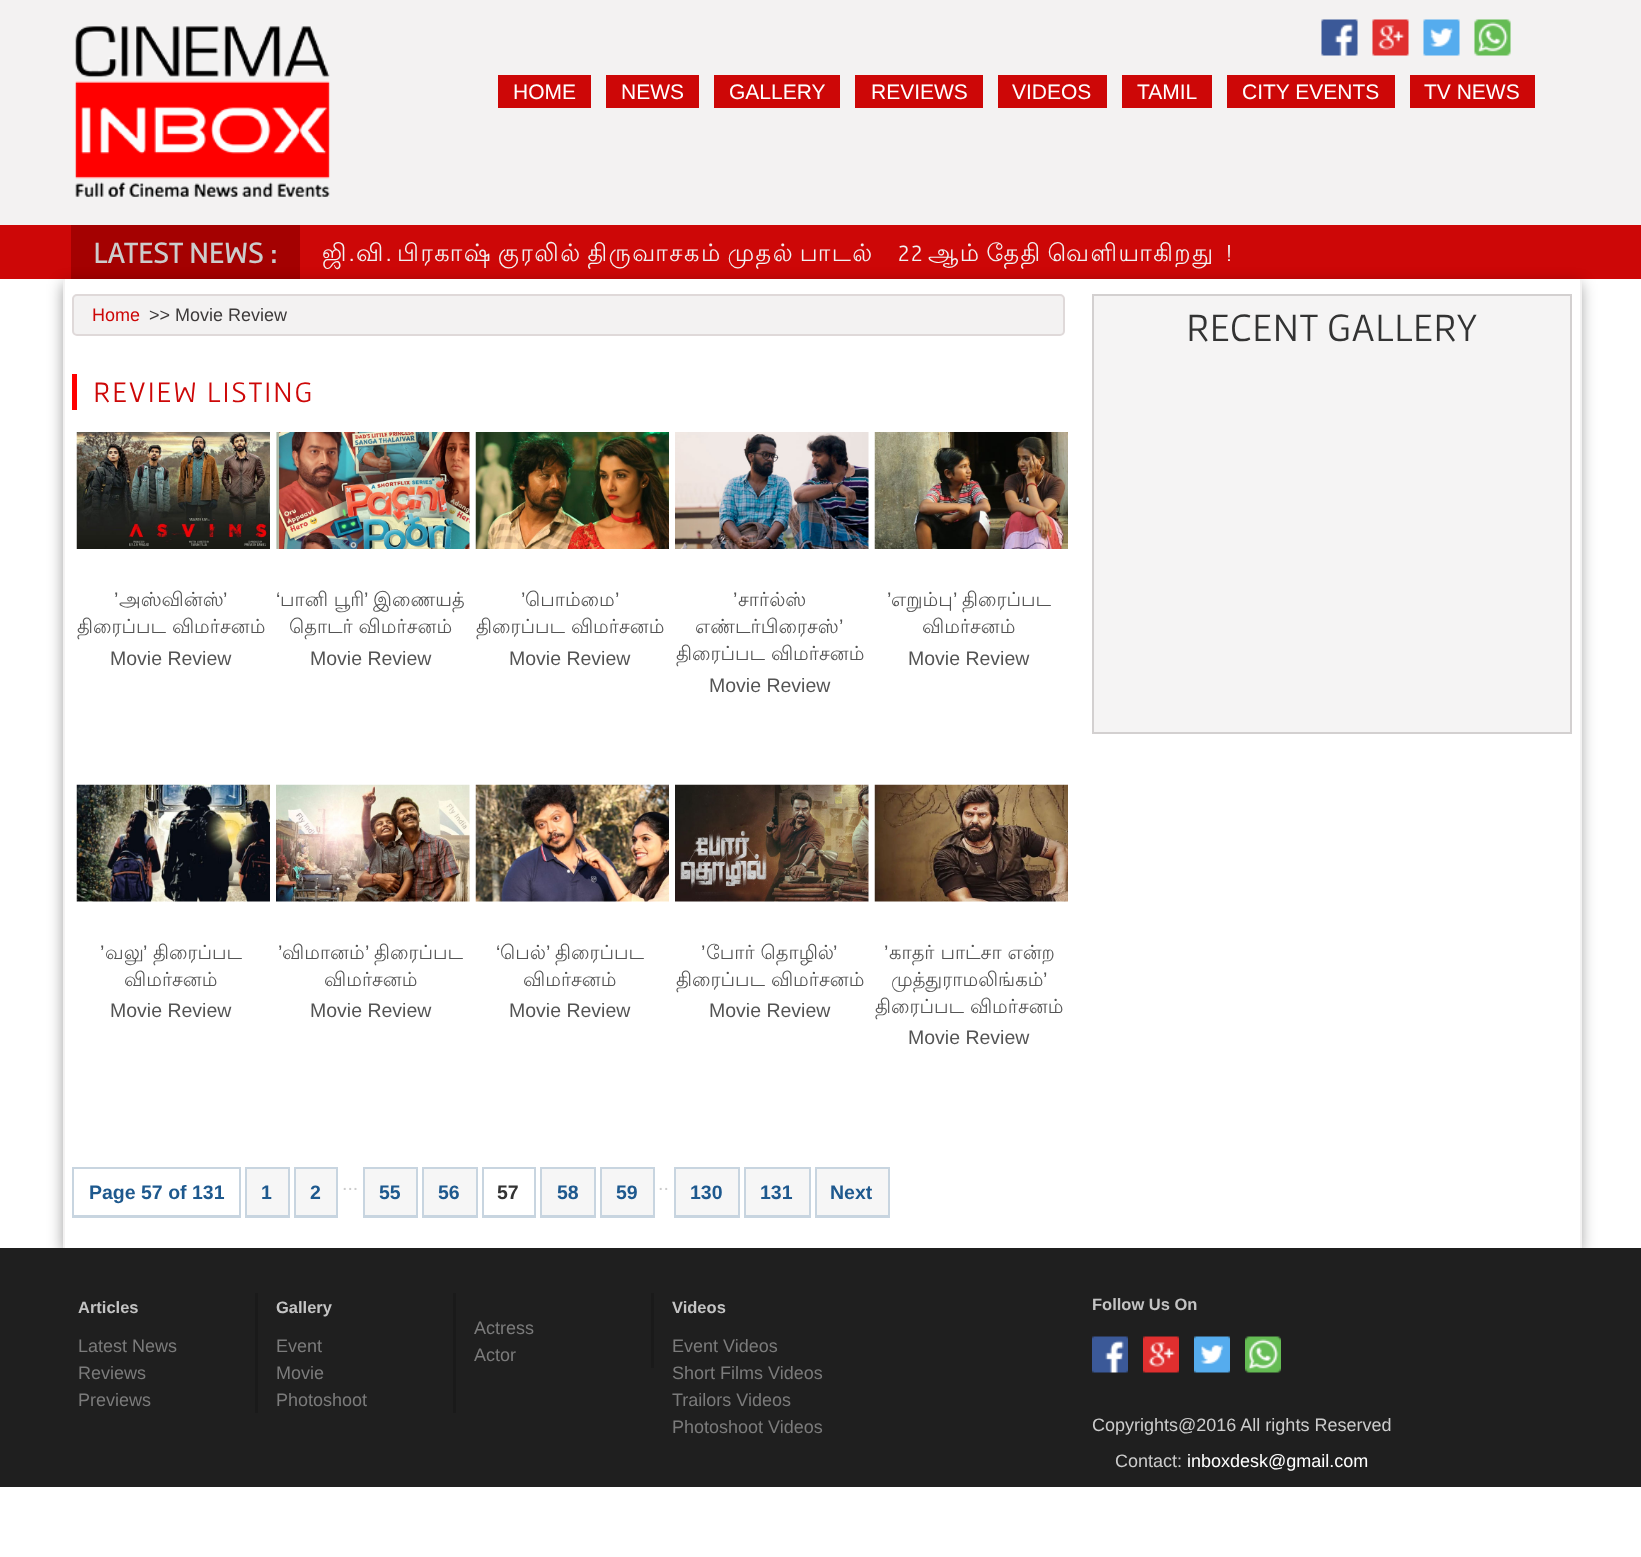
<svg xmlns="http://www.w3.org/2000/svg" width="1641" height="1557">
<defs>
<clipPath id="clip1"><path d="M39 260h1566v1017h-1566zm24 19h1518v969h-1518z" clip-rule="evenodd"/></clipPath>
</defs>
<rect width="100%" height="100%" fill="#fff"/>
<rect width="1641" height="225" fill="#f3f2f2"/>
<image x="75" y="26" width="255" height="171" href="media/1.png"/>
<image x="1321" y="19" width="37" height="37" href="media/2.png"/>
<image x="1372" y="19" width="37" height="37" href="media/3.png"/>
<image x="1423" y="19" width="37" height="37" href="media/4.png"/>
<image x="1474" y="19" width="37" height="37" href="media/5.png"/>
<rect x="498" y="75" width="93" height="33" fill="#cd0707"/>
<text x="513" y="99" style="font-family:Liberation Sans;font-size:21px;fill:#fff">HOME</text>
<rect x="606" y="75" width="93" height="33" fill="#cd0707"/>
<text x="621" y="99" style="font-family:Liberation Sans;font-size:21px;fill:#fff">NEWS</text>
<rect x="714" y="75" width="126" height="33" fill="#cd0707"/>
<text x="729" y="99" style="font-family:Liberation Sans;font-size:21px;fill:#fff">GALLERY</text>
<rect x="855" y="75" width="128" height="33" fill="#cd0707"/>
<text x="871" y="99" style="font-family:Liberation Sans;font-size:21px;fill:#fff">REVIEWS</text>
<rect x="998" y="75" width="109" height="33" fill="#cd0707"/>
<text x="1012" y="99" style="font-family:Liberation Sans;font-size:21px;fill:#fff">VIDEOS</text>
<rect x="1122" y="75" width="90" height="33" fill="#cd0707"/>
<text x="1137" y="99" style="font-family:Liberation Sans;font-size:21px;fill:#fff">TAMIL</text>
<rect x="1227" y="75" width="168" height="33" fill="#cd0707"/>
<text x="1242" y="99" style="font-family:Liberation Sans;font-size:21px;fill:#fff">CITY EVENTS</text>
<rect x="1410" y="75" width="125" height="33" fill="#cd0707"/>
<text x="1424" y="99" style="font-family:Liberation Sans;font-size:21px;fill:#fff">TV NEWS</text>
<rect y="225" width="1641" height="54" fill="#cd0707"/>
<rect x="71" y="225" width="229" height="54" fill="#a40101"/>
<text x="93" y="263" style="font-family:Gafata;font-size:30px;font-weight:bold;fill:#ccc">LATEST NEWS :</text>
<g clip-path="url(#clip1)">
<rect x="63" y="284" width="1518" height="969" fill="#00000061" filter="blur(7.5px)"/>
</g>
<text x="322" y="261" style="font-family:Lohit Tamil;font-size:24px;letter-spacing:1.5px;fill:#f2f2f2">ஜி</text>
<text x="349" y="261" style="font-family:Gafata;font-size:24px;letter-spacing:1.5px;fill:#f2f2f2">.</text>
<text x="356" y="261" style="font-family:Lohit Tamil;font-size:24px;letter-spacing:1.5px;fill:#f2f2f2">வி</text>
<text x="386" y="261" style="font-family:Gafata;font-size:24px;letter-spacing:1.5px;fill:#f2f2f2">.</text>
<text x="397" y="261" word-spacing="-3" style="font-family:Lohit Tamil;font-size:24px;letter-spacing:1.5px;fill:#f2f2f2">பிரகாஷ் குரலில் திருவாசகம் முதல் பாடல்</text>
<text x="898" y="261" style="font-family:Gafata;font-size:24px;letter-spacing:1.5px;fill:#f2f2f2">22</text>
<text x="928" y="261" word-spacing="-3" style="font-family:Lohit Tamil;font-size:24px;letter-spacing:1.5px;fill:#f2f2f2">ஆம் தேதி வெளியாகிறது</text>
<text x="1226" y="261" style="font-family:Gafata;font-size:24px;letter-spacing:1.5px;fill:#f2f2f2">!</text>
<rect x="1580" y="279" width="2" height="969" fill="#f3f2f2"/>
<rect x="63" y="279" width="2" height="969" fill="#f3f2f2"/>
<rect x="73" y="295" width="991" height="40" rx="4" fill="#f3f2f2" stroke="#dfd9d9" stroke-width="2"/>
<text x="92" y="321" style="font-family:Liberation Sans;font-size:18px;fill:#cd0707">Home</text>
<text x="149" y="321" style="font-family:Liberation Sans;font-size:18px;fill:#3d3a3a">&gt;&gt; Movie Review</text>
<rect x="72" y="374" width="5" height="36" fill="#f00"/>
<text x="93" y="402" style="font-family:Gafata;font-size:30px;letter-spacing:1.5px;fill:#cd0707">REVIEW LISTING</text>
<image x="76" y="432" width="194" height="117" href="media/6.png"/>
<text x="114" y="606" style="font-family:Liberation Sans;font-size:19.5px;fill:#545454">’</text>
<text x="119" y="606" style="font-family:Lohit Tamil;font-size:19.5px;fill:#545454">அஸ்வின்ஸ்</text>
<text x="223" y="606" style="font-family:Liberation Sans;font-size:19.5px;fill:#545454">’</text>
<text x="77" y="633" style="font-family:Lohit Tamil;font-size:19.5px;fill:#545454">திரைப்பட விமர்சனம்</text>
<text x="110" y="665" style="font-family:Liberation Sans;font-size:19.5px;fill:#545454">Movie Review</text>
<image x="276" y="432" width="194" height="117" href="media/7.png"/>
<text x="276" y="606" style="font-family:Liberation Sans;font-size:19.5px;fill:#545454">‘</text>
<text x="280" y="606" style="font-family:Lohit Tamil;font-size:19.5px;fill:#545454">பானி பூரி</text>
<text x="364" y="606" style="font-family:Liberation Sans;font-size:19.5px;fill:#545454">’</text>
<text x="373" y="606" style="font-family:Lohit Tamil;font-size:19.5px;fill:#545454">இணையத்</text>
<text x="289" y="633" style="font-family:Lohit Tamil;font-size:19.5px;fill:#545454">தொடர் விமர்சனம்</text>
<text x="310" y="665" style="font-family:Liberation Sans;font-size:19.5px;fill:#545454">Movie Review</text>
<image x="475" y="432" width="194" height="117" href="media/8.png"/>
<text x="521" y="606" style="font-family:Liberation Sans;font-size:19.5px;fill:#545454">’</text>
<text x="525" y="606" style="font-family:Lohit Tamil;font-size:19.5px;fill:#545454">பொம்மை</text>
<text x="615" y="606" style="font-family:Liberation Sans;font-size:19.5px;fill:#545454">’</text>
<text x="476" y="633" style="font-family:Lohit Tamil;font-size:19.5px;fill:#545454">திரைப்பட விமர்சனம்</text>
<text x="509" y="665" style="font-family:Liberation Sans;font-size:19.5px;fill:#545454">Movie Review</text>
<image x="675" y="432" width="194" height="117" href="media/9.png"/>
<text x="733" y="606" style="font-family:Liberation Sans;font-size:19.5px;fill:#545454">’</text>
<text x="738" y="606" style="font-family:Lohit Tamil;font-size:19.5px;fill:#545454">சார்ல்ஸ்</text>
<text x="695" y="633" style="font-family:Lohit Tamil;font-size:19.5px;fill:#545454">எண்டர்பிரைசஸ்</text>
<text x="839" y="633" style="font-family:Liberation Sans;font-size:19.5px;fill:#545454">’</text>
<text x="676" y="660" style="font-family:Lohit Tamil;font-size:19.5px;fill:#545454">திரைப்பட விமர்சனம்</text>
<text x="709" y="692" style="font-family:Liberation Sans;font-size:19.5px;fill:#545454">Movie Review</text>
<image x="874" y="432" width="194" height="117" href="media/10.png"/>
<text x="887" y="606" style="font-family:Liberation Sans;font-size:19.5px;fill:#545454">’</text>
<text x="891" y="606" style="font-family:Lohit Tamil;font-size:19.5px;fill:#545454">எறும்பு</text>
<text x="953" y="606" style="font-family:Liberation Sans;font-size:19.5px;fill:#545454">’</text>
<text x="962" y="606" style="font-family:Lohit Tamil;font-size:19.5px;fill:#545454">திரைப்பட</text>
<text x="922" y="633" style="font-family:Lohit Tamil;font-size:19.5px;fill:#545454">விமர்சனம்</text>
<text x="908" y="665" style="font-family:Liberation Sans;font-size:19.5px;fill:#545454">Movie Review</text>
<image x="76" y="784" width="194" height="118" href="media/11.png"/>
<text x="100" y="959" style="font-family:Liberation Sans;font-size:19.5px;fill:#545454">’</text>
<text x="143" y="959" style="font-family:Liberation Sans;font-size:19.5px;fill:#545454">’</text>
<text x="153" y="959" style="font-family:Lohit Tamil;font-size:19.5px;fill:#545454">திரைப்பட</text>
<text x="105" y="959" style="font-family:Lohit Tamil;font-size:19.5px;fill:#545454">வலு</text>
<text x="124" y="986" style="font-family:Lohit Tamil;font-size:19.5px;fill:#545454">விமர்சனம்</text>
<text x="110" y="1017" style="font-family:Liberation Sans;font-size:19.5px;fill:#545454">Movie Review</text>
<image x="276" y="784" width="194" height="118" href="media/12.png"/>
<text x="278" y="959" style="font-family:Liberation Sans;font-size:19.5px;fill:#545454">’</text>
<text x="282" y="959" style="font-family:Lohit Tamil;font-size:19.5px;fill:#545454">விமானம்</text>
<text x="365" y="959" style="font-family:Liberation Sans;font-size:19.5px;fill:#545454">’</text>
<text x="374" y="959" style="font-family:Lohit Tamil;font-size:19.5px;fill:#545454">திரைப்பட</text>
<text x="324" y="986" style="font-family:Lohit Tamil;font-size:19.5px;fill:#545454">விமர்சனம்</text>
<text x="310" y="1017" style="font-family:Liberation Sans;font-size:19.5px;fill:#545454">Movie Review</text>
<image x="475" y="784" width="194" height="118" href="media/13.png"/>
<text x="496" y="959" style="font-family:Liberation Sans;font-size:19.5px;fill:#545454">‘</text>
<text x="500" y="959" style="font-family:Lohit Tamil;font-size:19.5px;fill:#545454">பெல்</text>
<text x="546" y="959" style="font-family:Liberation Sans;font-size:19.5px;fill:#545454">’</text>
<text x="555" y="959" style="font-family:Lohit Tamil;font-size:19.5px;fill:#545454">திரைப்பட</text>
<text x="523" y="986" style="font-family:Lohit Tamil;font-size:19.5px;fill:#545454">விமர்சனம்</text>
<text x="509" y="1017" style="font-family:Liberation Sans;font-size:19.5px;fill:#545454">Movie Review</text>
<image x="675" y="784" width="194" height="118" href="media/14.png"/>
<text x="701" y="959" style="font-family:Liberation Sans;font-size:19.5px;fill:#545454">’</text>
<text x="706" y="959" style="font-family:Lohit Tamil;font-size:19.5px;fill:#545454">போர் தொழில்</text>
<text x="833" y="959" style="font-family:Liberation Sans;font-size:19.5px;fill:#545454">’</text>
<text x="676" y="986" style="font-family:Lohit Tamil;font-size:19.5px;fill:#545454">திரைப்பட விமர்சனம்</text>
<text x="709" y="1017" style="font-family:Liberation Sans;font-size:19.5px;fill:#545454">Movie Review</text>
<image x="874" y="784" width="194" height="118" href="media/15.png"/>
<text x="884" y="959" style="font-family:Liberation Sans;font-size:19.5px;fill:#545454">’</text>
<text x="889" y="959" style="font-family:Lohit Tamil;font-size:19.5px;fill:#545454">காதர் பாட்சா என்ற</text>
<text x="891" y="986" style="font-family:Lohit Tamil;font-size:19.5px;fill:#545454">முத்துராமலிங்கம்</text>
<text x="1043" y="986" style="font-family:Liberation Sans;font-size:19.5px;fill:#545454">’</text>
<text x="875" y="1013" style="font-family:Lohit Tamil;font-size:19.5px;fill:#545454">திரைப்பட விமர்சனம்</text>
<text x="908" y="1044" style="font-family:Liberation Sans;font-size:19.5px;fill:#545454">Movie Review</text>
<rect x="72" y="1167" width="168" height="2" fill="#c8d5e0"/>
<rect x="239" y="1167" width="2" height="51" fill="#c8d5e0"/>
<rect x="72" y="1215" width="168" height="3" fill="#c8d5e0"/>
<rect x="72" y="1167" width="2" height="51" fill="#c8d5e0"/>
<text x="89" y="1199" style="font-family:Liberation Sans;font-size:19.5px;font-weight:bold;fill:#1e598e">Page 57 of 131</text>
<rect x="247" y="1169" width="41" height="46" fill="#f6f6f6"/>
<rect x="245" y="1167" width="45" height="2" fill="#c8d5e0"/>
<rect x="288" y="1167" width="2" height="51" fill="#c8d5e0"/>
<rect x="245" y="1215" width="45" height="3" fill="#c8d5e0"/>
<rect x="245" y="1167" width="2" height="51" fill="#c8d5e0"/>
<text x="261" y="1199" style="font-family:Liberation Sans;font-size:19.5px;font-weight:bold;fill:#1e598e">1</text>
<rect x="296" y="1169" width="40" height="46" fill="#f6f6f6"/>
<rect x="294" y="1167" width="44" height="2" fill="#c8d5e0"/>
<rect x="336" y="1167" width="2" height="51" fill="#c8d5e0"/>
<rect x="294" y="1215" width="44" height="3" fill="#c8d5e0"/>
<rect x="294" y="1167" width="2" height="51" fill="#c8d5e0"/>
<text x="310" y="1199" style="font-family:Liberation Sans;font-size:19.5px;font-weight:bold;fill:#1e598e">2</text>
<text x="342" y="1190" style="font-family:Liberation Sans;font-size:19.5px;fill:#ccc">...</text>
<rect x="365" y="1169" width="51" height="46" fill="#f6f6f6"/>
<rect x="363" y="1167" width="54" height="2" fill="#c8d5e0"/>
<rect x="416" y="1167" width="2" height="51" fill="#c8d5e0"/>
<rect x="363" y="1215" width="54" height="3" fill="#c8d5e0"/>
<rect x="363" y="1167" width="2" height="51" fill="#c8d5e0"/>
<text x="379" y="1199" style="font-family:Liberation Sans;font-size:19.5px;font-weight:bold;fill:#1e598e">55</text>
<rect x="424" y="1169" width="52" height="46" fill="#f6f6f6"/>
<rect x="422" y="1167" width="55" height="2" fill="#c8d5e0"/>
<rect x="476" y="1167" width="2" height="51" fill="#c8d5e0"/>
<rect x="422" y="1215" width="55" height="3" fill="#c8d5e0"/>
<rect x="422" y="1167" width="2" height="51" fill="#c8d5e0"/>
<text x="438" y="1199" style="font-family:Liberation Sans;font-size:19.5px;font-weight:bold;fill:#1e598e">56</text>
<rect x="482" y="1167" width="54" height="2" fill="#c8d5e0"/>
<rect x="534" y="1167" width="2" height="51" fill="#c8d5e0"/>
<rect x="482" y="1215" width="54" height="3" fill="#c8d5e0"/>
<rect x="482" y="1167" width="2" height="51" fill="#c8d5e0"/>
<text x="497" y="1199" style="font-family:Liberation Sans;font-size:19.5px;font-weight:bold;fill:#333">57</text>
<rect x="542" y="1169" width="52" height="46" fill="#f6f6f6"/>
<rect x="540" y="1167" width="56" height="2" fill="#c8d5e0"/>
<rect x="594" y="1167" width="2" height="51" fill="#c8d5e0"/>
<rect x="540" y="1215" width="56" height="3" fill="#c8d5e0"/>
<rect x="540" y="1167" width="2" height="51" fill="#c8d5e0"/>
<text x="557" y="1199" style="font-family:Liberation Sans;font-size:19.5px;font-weight:bold;fill:#1e598e">58</text>
<rect x="602" y="1169" width="51" height="46" fill="#f6f6f6"/>
<rect x="600" y="1167" width="54" height="2" fill="#c8d5e0"/>
<rect x="653" y="1167" width="2" height="51" fill="#c8d5e0"/>
<rect x="600" y="1215" width="54" height="3" fill="#c8d5e0"/>
<rect x="600" y="1167" width="2" height="51" fill="#c8d5e0"/>
<text x="616" y="1199" style="font-family:Liberation Sans;font-size:19.5px;font-weight:bold;fill:#1e598e">59</text>
<text x="658" y="1190" style="font-family:Liberation Sans;font-size:19.5px;fill:#ccc">..</text>
<rect x="676" y="1169" width="62" height="46" fill="#f6f6f6"/>
<rect x="674" y="1167" width="66" height="2" fill="#c8d5e0"/>
<rect x="738" y="1167" width="2" height="51" fill="#c8d5e0"/>
<rect x="674" y="1215" width="66" height="3" fill="#c8d5e0"/>
<rect x="674" y="1167" width="2" height="51" fill="#c8d5e0"/>
<text x="690" y="1199" style="font-family:Liberation Sans;font-size:19.5px;font-weight:bold;fill:#1e598e">130</text>
<rect x="746" y="1169" width="63" height="46" fill="#f6f6f6"/>
<rect x="744" y="1167" width="66" height="2" fill="#c8d5e0"/>
<rect x="809" y="1167" width="2" height="51" fill="#c8d5e0"/>
<rect x="744" y="1215" width="66" height="3" fill="#c8d5e0"/>
<rect x="744" y="1167" width="2" height="51" fill="#c8d5e0"/>
<text x="760" y="1199" style="font-family:Liberation Sans;font-size:19.5px;font-weight:bold;fill:#1e598e">131</text>
<rect x="817" y="1169" width="71" height="46" fill="#f6f6f6"/>
<rect x="815" y="1167" width="75" height="2" fill="#c8d5e0"/>
<rect x="888" y="1167" width="2" height="51" fill="#c8d5e0"/>
<rect x="815" y="1215" width="75" height="3" fill="#c8d5e0"/>
<rect x="815" y="1167" width="2" height="51" fill="#c8d5e0"/>
<text x="830" y="1199" style="font-family:Liberation Sans;font-size:19.5px;font-weight:bold;fill:#1e598e">Next</text>
<rect x="1093" y="295" width="478" height="438" fill="#f5f4f4" stroke="#d3d0d0" stroke-width="2"/>
<text x="1186" y="341" style="font-family:Gafata;font-size:40.5px;fill:#333">RECENT GALLERY</text>
<rect y="1248" width="1641" height="239" fill="#1f1f1f"/>
<rect x="255" y="1293" width="3" height="120" fill="#1a1a1a"/>
<text x="78" y="1313" style="font-family:Liberation Sans;font-size:16.5px;font-weight:bold;fill:#c4c4c4">Articles</text>
<text x="78" y="1352" style="font-family:Liberation Sans;font-size:18px;fill:#7b7b7b">Latest News</text>
<text x="78" y="1379" style="font-family:Liberation Sans;font-size:18px;fill:#7b7b7b">Reviews</text>
<text x="78" y="1406" style="font-family:Liberation Sans;font-size:18px;fill:#7b7b7b">Previews</text>
<rect x="453" y="1293" width="3" height="120" fill="#1a1a1a"/>
<text x="276" y="1313" style="font-family:Liberation Sans;font-size:16.5px;font-weight:bold;fill:#c4c4c4">Gallery</text>
<text x="276" y="1352" style="font-family:Liberation Sans;font-size:18px;fill:#7b7b7b">Event</text>
<text x="276" y="1379" style="font-family:Liberation Sans;font-size:18px;fill:#7b7b7b">Movie</text>
<text x="276" y="1406" style="font-family:Liberation Sans;font-size:18px;fill:#7b7b7b">Photoshoot</text>
<rect x="651" y="1293" width="3" height="75" fill="#1a1a1a"/>
<text x="474" y="1334" style="font-family:Liberation Sans;font-size:18px;fill:#7b7b7b">Actress</text>
<text x="474" y="1361" style="font-family:Liberation Sans;font-size:18px;fill:#7b7b7b">Actor</text>
<text x="672" y="1313" style="font-family:Liberation Sans;font-size:16.5px;font-weight:bold;fill:#c4c4c4">Videos</text>
<text x="672" y="1352" style="font-family:Liberation Sans;font-size:18px;fill:#7b7b7b">Event Videos</text>
<text x="672" y="1379" style="font-family:Liberation Sans;font-size:18px;fill:#7b7b7b">Short Films Videos</text>
<text x="672" y="1406" style="font-family:Liberation Sans;font-size:18px;fill:#7b7b7b">Trailors Videos</text>
<text x="672" y="1433" style="font-family:Liberation Sans;font-size:18px;fill:#7b7b7b">Photoshoot Videos</text>
<text x="1092" y="1310" style="font-family:Liberation Sans;font-size:16.5px;font-weight:bold;fill:#c4c4c4">Follow Us On</text>
<image x="1092" y="1336" width="36" height="37" href="media/16.png"/>
<image x="1143" y="1336" width="36" height="37" href="media/17.png"/>
<image x="1194" y="1336" width="36" height="37" href="media/18.png"/>
<image x="1245" y="1336" width="36" height="37" href="media/19.png"/>
<text x="1092" y="1431" style="font-family:Liberation Sans;font-size:18px;fill:#ccc">Copyrights@2016 All rights Reserved</text>
<text x="1115" y="1467" style="font-family:Liberation Sans;font-size:18px;fill:#ccc">Contact:</text>
<text x="1187" y="1467" style="font-family:Liberation Sans;font-size:18px;fill:#fff">inboxdesk@gmail.com</text>
</svg>
